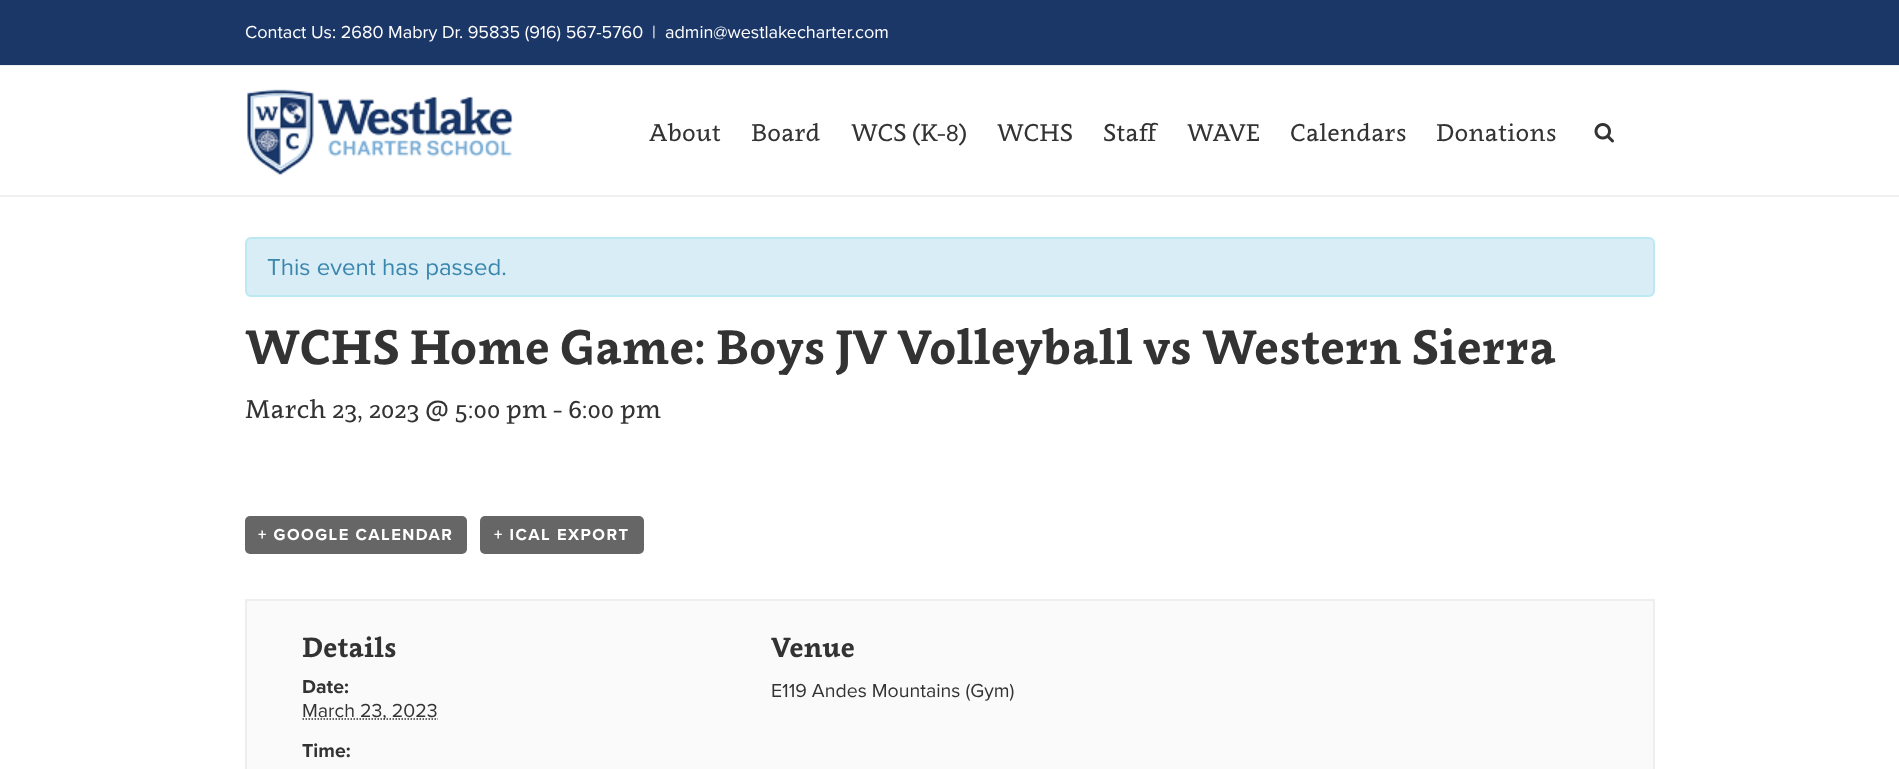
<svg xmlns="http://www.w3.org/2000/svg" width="1899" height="769">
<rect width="100%" height="100%" fill="#fff"/>
<rect width="1899" height="65" fill="#1b3768"/>
<rect y="65" width="1899" height="1" fill="#efefef"/>
<text x="245" y="38" style="font-family:Proxima Nova;font-size:18px;fill:#fff">Contact Us: 2680 Mabry Dr. 95835 (916) 567-5760</text>
<text x="652" y="38" style="font-family:Proxima Nova;font-size:18px;fill:#fff">|</text>
<text x="665" y="38" style="font-family:Proxima Nova;font-size:18px;fill:#fff">admin@westlakecharter.com</text>
<rect y="195" width="1899" height="2" fill="#efefef"/>
<image x="247" y="89" width="266" height="86" href="media/1.png"/>
<text x="649" y="141" style="font-family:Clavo;font-size:24px;fill:#333">About</text>
<text x="751" y="141" style="font-family:Clavo;font-size:24px;fill:#333">Board</text>
<text x="851" y="141" style="font-family:Clavo;font-size:24px;fill:#333">WCS (K-8)</text>
<text x="997" y="141" style="font-family:Clavo;font-size:24px;fill:#333">WCHS</text>
<text x="1103" y="141" style="font-family:Clavo;font-size:24px;fill:#333">Staff</text>
<text x="1187" y="141" style="font-family:Clavo;font-size:24px;fill:#333">WAVE</text>
<text x="1290" y="141" style="font-family:Clavo;font-size:24px;fill:#333">Calendars</text>
<text x="1436" y="141" style="font-family:Clavo;font-size:24px;fill:#333">Donations</text>
<image x="1594" y="123" width="20" height="20" href="media/2.png"/>
<rect x="246" y="238" width="1408" height="58" rx="5" fill="#d9edf7" stroke="#bce8f1" stroke-width="2"/>
<text x="267" y="275" style="font-family:Proxima Nova;font-size:24px;fill:#3a87ad">This event has passed.</text>
<text x="245" y="364" style="font-family:Clavo;font-size:48px;font-weight:bold;fill:#333">WCHS Home Game: Boys JV Volleyball vs Western Sierra</text>
<text x="245" y="418" style="font-family:Clavo;font-size:25.5px;fill:#333">March 23, 2023 @ 5:00 pm - 6:00 pm</text>
<rect x="245" y="516" width="222" height="38" rx="5" fill="#666"/>
<text x="258" y="540" style="font-family:Proxima Nova;font-size:16.5px;font-weight:bold;letter-spacing:1.5px;fill:#fff">+ GOOGLE CALENDAR</text>
<rect x="480" y="516" width="164" height="38" rx="5" fill="#666"/>
<text x="494" y="540" style="font-family:Proxima Nova;font-size:16.5px;font-weight:bold;letter-spacing:1.5px;fill:#fff">+ ICAL EXPORT</text>
<rect x="246" y="600" width="1408" height="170" fill="#fafafa" stroke="#eee" stroke-width="2"/>
<text x="302" y="657" style="font-family:Clavo;font-size:27.5px;font-weight:bold;fill:#333">Details</text>
<text x="302" y="693" style="font-family:Proxima Nova;font-size:19.5px;font-weight:bold;fill:#333">Date:</text>
<path d="M302.5 719h135.5" fill="none" stroke="#333" stroke-width="1.5" stroke-dasharray="1.5 1.5"/>
<text x="302" y="717" style="font-family:Proxima Nova;font-size:19.5px;fill:#333">March 23, 2023</text>
<text x="302" y="757" style="font-family:Proxima Nova;font-size:19.5px;font-weight:bold;fill:#333">Time:</text>
<text x="771" y="657" style="font-family:Clavo;font-size:27.5px;font-weight:bold;fill:#333">Venue</text>
<text x="771" y="697" style="font-family:Proxima Nova;font-size:19.5px;fill:#333">E119 Andes Mountains (Gym)</text>
</svg>
